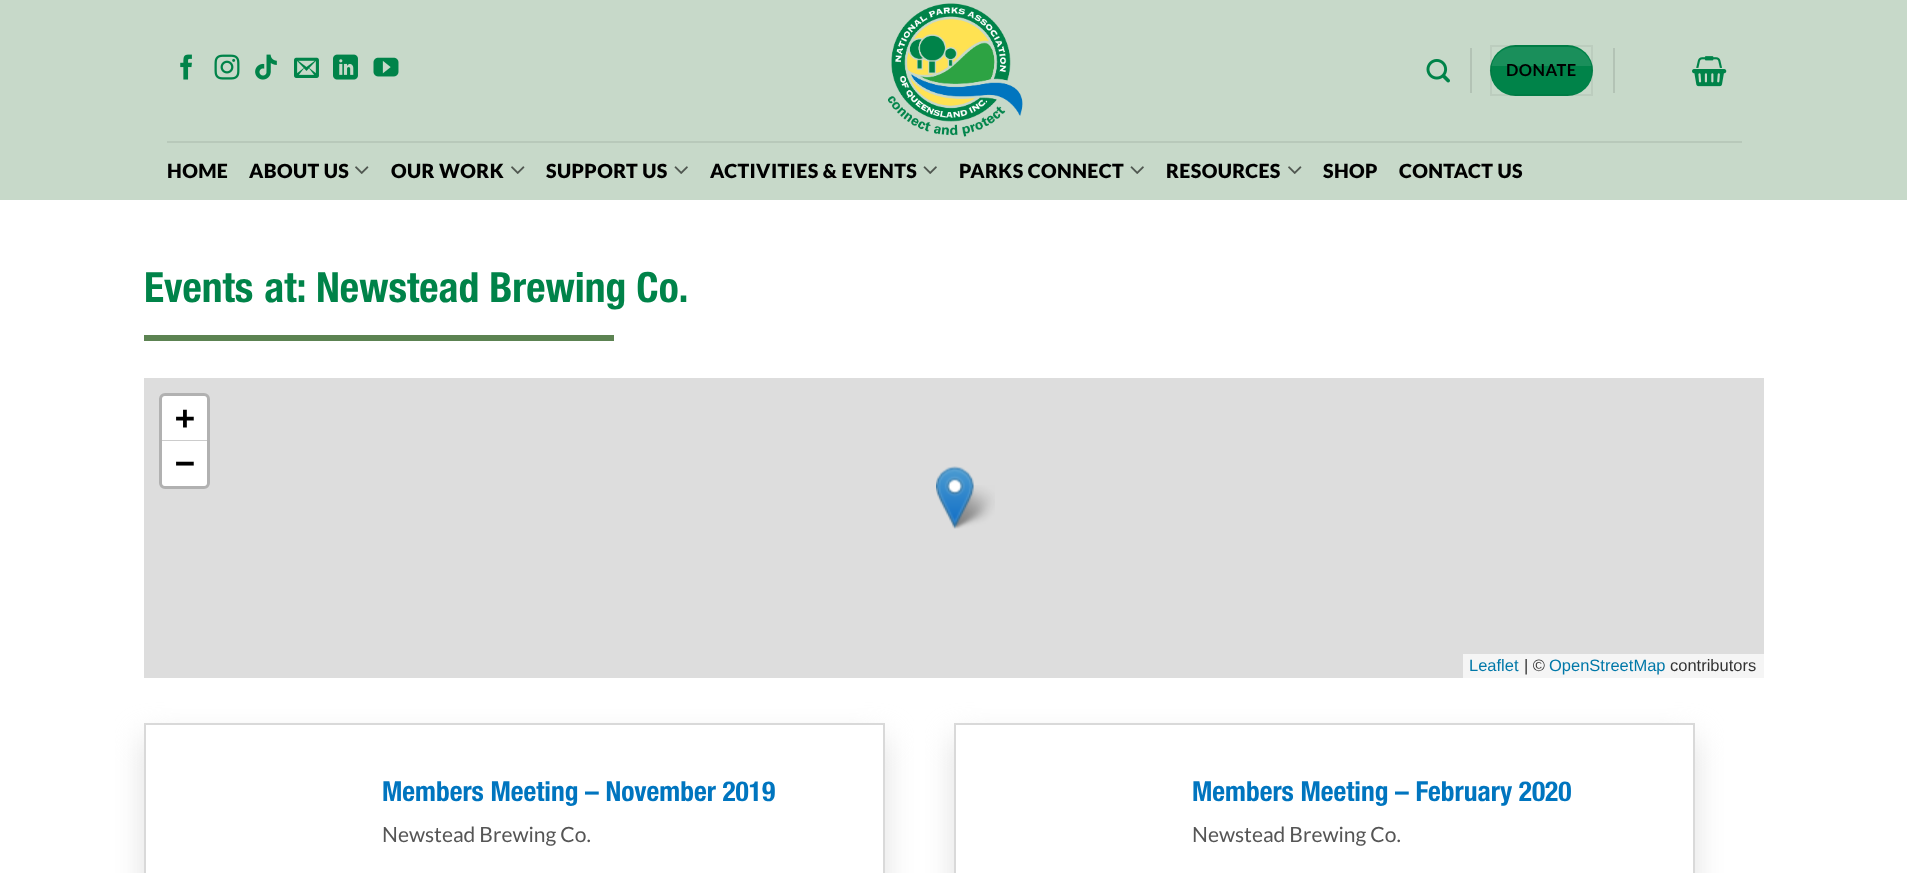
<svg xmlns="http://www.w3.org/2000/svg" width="1907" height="873">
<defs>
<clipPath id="clip1"><rect x="1491" y="47" width="101" height="48" rx="24"/></clipPath>
<clipPath id="clip2"><path d="M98 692h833v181h-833zm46 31h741v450h-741z" clip-rule="evenodd"/></clipPath>
<clipPath id="clip3"><path d="M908 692h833v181h-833zm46 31h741v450h-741z" clip-rule="evenodd"/></clipPath>
</defs>
<rect width="100%" height="100%" fill="#fff"/>
<rect width="1907" height="200" fill="#c7d9c9"/>
<image x="180" y="54" width="12" height="26" href="media/1.png"/>
<image x="214" y="54" width="26" height="26" href="media/2.png"/>
<image x="255" y="54" width="22" height="26" href="media/3.png"/>
<image x="294" y="57" width="25" height="21" href="media/4.png"/>
<image x="333" y="54" width="25" height="26" href="media/5.png"/>
<image x="373" y="57" width="26" height="20" href="media/6.png"/>
<image x="888" y="3" width="135" height="134" href="media/7.png"/>
<image x="1426" y="59" width="24" height="24" href="media/8.png"/>
<rect x="1470" y="48" width="2" height="45" fill="#b3c3b5"/>
<rect x="1490" y="45" width="103" height="51" rx="25.5" fill="#008349"/>
<rect x="1491" y="46" width="101" height="49" fill="none" stroke="#0000000d" stroke-width="2"/>
<g clip-path="url(#clip1)">
<rect x="1491" y="47" width="101" height="19" fill="#ffffff1a"/>
</g>
<text x="1506" y="76" style="font-family:Lato;font-size:16.5px;font-weight:bold;letter-spacing:0.5px;fill:#000">DONATE</text>
<rect x="1613" y="48" width="2" height="45" fill="#b3c3b5"/>
<image x="1692" y="56" width="35" height="31" href="media/9.png"/>
<rect x="167" y="141" width="1575" height="2" fill="#b8c9ba"/>
<text x="167" y="178" style="font-family:Lato;font-size:19.5px;font-weight:900;letter-spacing:0.4px;fill:#000">HOME</text>
<text x="249" y="178" style="font-family:Lato;font-size:19.5px;font-weight:900;letter-spacing:0.4px;fill:#000">ABOUT US</text>
<image x="355" y="166" width="14" height="8" href="media/10.png"/>
<text x="391" y="178" style="font-family:Lato;font-size:19.5px;font-weight:900;letter-spacing:0.4px;fill:#000">OUR WORK</text>
<image x="511" y="166" width="14" height="8" href="media/10.png"/>
<text x="546" y="178" style="font-family:Lato;font-size:19.5px;font-weight:900;letter-spacing:0.4px;fill:#000">SUPPORT US</text>
<image x="674" y="166" width="14" height="8" href="media/11.png"/>
<text x="710" y="178" style="font-family:Lato;font-size:19.5px;font-weight:900;letter-spacing:0.4px;fill:#000">ACTIVITIES &amp; EVENTS</text>
<image x="923" y="166" width="14" height="8" href="media/11.png"/>
<text x="959" y="178" style="font-family:Lato;font-size:19.5px;font-weight:900;letter-spacing:0.4px;fill:#000">PARKS CONNECT</text>
<image x="1130" y="166" width="14" height="8" href="media/11.png"/>
<text x="1166" y="178" style="font-family:Lato;font-size:19.5px;font-weight:900;letter-spacing:0.4px;fill:#000">RESOURCES</text>
<image x="1288" y="166" width="14" height="8" href="media/10.png"/>
<text x="1323" y="178" style="font-family:Lato;font-size:19.5px;font-weight:900;letter-spacing:0.4px;fill:#000">SHOP</text>
<text x="1399" y="178" style="font-family:Lato;font-size:19.5px;font-weight:900;letter-spacing:0.4px;fill:#000">CONTACT US</text>
<text x="144" y="302" word-spacing="1" style="font-family:Helvetica Neue;font-size:41.6px;font-weight:bold;fill:#008349">Events at:</text>
<text x="316" y="302" style="font-family:Helvetica Neue;font-size:41.6px;font-weight:bold;fill:#008349">Newstead Brewing Co.</text>
<rect x="144" y="335" width="470" height="6" fill="#5c8352"/>
<rect x="144" y="378" width="1620" height="300" fill="#ddd"/>
<rect x="160.5" y="394.5" width="48" height="93" rx="4.5" fill="none" stroke="#b1b1b1" stroke-width="3"/>
<path d="M165 396h39c1.5 0 3 1.5 3 3v42h-45v-42c0-1.5 1.5-3 3-3z" fill="#fff"/>
<rect x="162" y="440" width="45" height="1" fill="#ccc"/>
<text x="175" y="429" style="font-family:DejaVu Sans Mono;font-size:33px;font-weight:bold;fill:#000">+</text>
<path d="M162 441h45v42c0 1.5-1.5 3-3 3h-39c-1.5 0-3-1.5-3-3z" fill="#fff"/>
<text x="175" y="474" style="font-family:DejaVu Sans Mono;font-size:33px;font-weight:bold;fill:#000">−</text>
<rect x="1463" y="654" width="301" height="24" fill="#f5f5f5"/>
<text x="1469" y="671" style="font-family:Liberation Sans;font-size:16.5px;fill:#0078a8">Leaflet</text>
<text x="1524" y="671" style="font-family:Liberation Sans;font-size:16.5px;fill:#333">| ©</text>
<text x="1549" y="671" style="font-family:Liberation Sans;font-size:16.5px;fill:#0078a8">OpenStreetMap</text>
<text x="1670" y="671" style="font-family:Liberation Sans;font-size:16.5px;fill:#333">contributors</text>
<image x="949" y="485" width="46" height="44" href="media/13.png"/>
<image x="936" y="466" width="38" height="63" href="media/12.png"/>
<g clip-path="url(#clip2)">
<rect x="144" y="738" width="741" height="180" fill="#dfdfdf" filter="blur(15px)"/>
</g>
<rect x="145" y="724" width="739" height="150" fill="none" stroke="#d9d9d9" stroke-width="2"/>
<text x="382" y="801" style="font-family:Helvetica Neue;font-size:27.5px;font-weight:bold;fill:#0075bf">Members Meeting – November 2019</text>
<text x="382" y="842" style="font-family:Lato;font-size:21px;fill:#555">Newstead Brewing Co.</text>
<g clip-path="url(#clip3)">
<rect x="954" y="738" width="741" height="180" fill="#dfdfdf" filter="blur(15px)"/>
</g>
<rect x="955" y="724" width="739" height="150" fill="none" stroke="#d9d9d9" stroke-width="2"/>
<text x="1192" y="801" style="font-family:Helvetica Neue;font-size:27.5px;font-weight:bold;fill:#0075bf">Members Meeting – February 2020</text>
<text x="1192" y="842" style="font-family:Lato;font-size:21px;fill:#555">Newstead Brewing Co.</text>
</svg>
